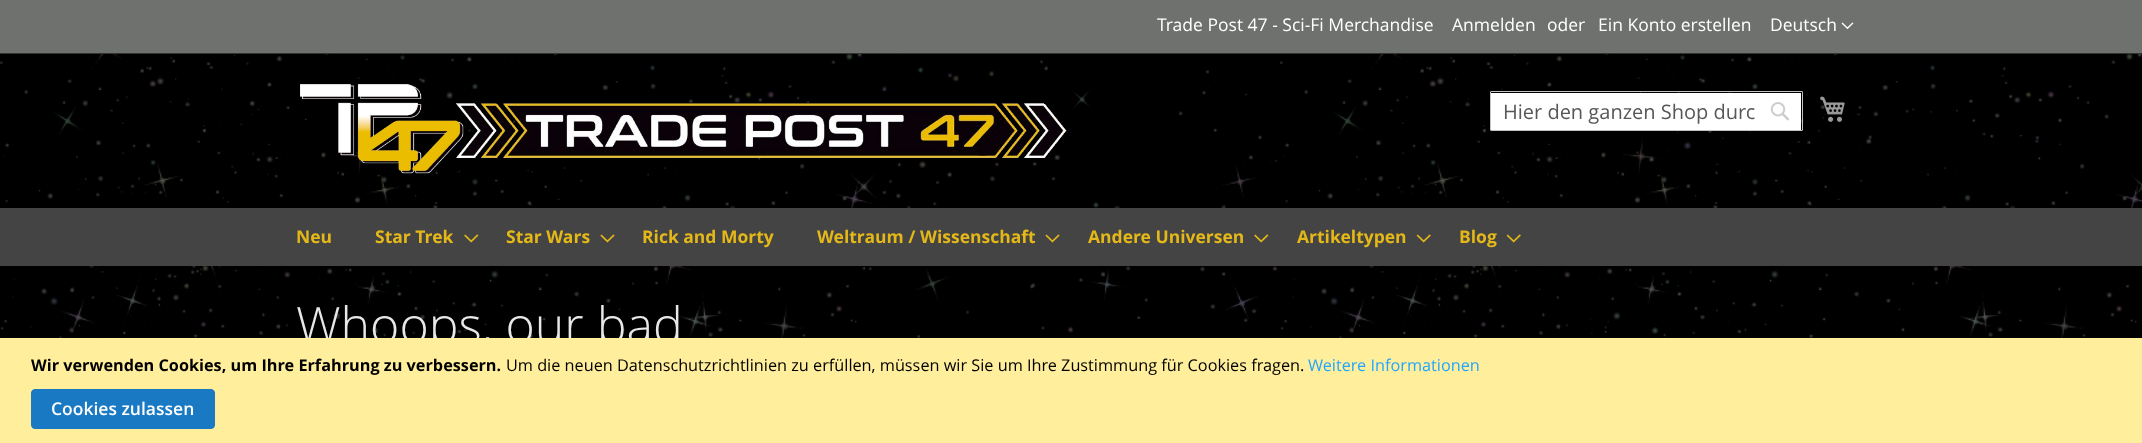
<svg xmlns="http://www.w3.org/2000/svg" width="2142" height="443">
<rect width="100%" height="100%" fill="#fff"/>
<image x="0" y="54" width="2142" height="284" href="media/1.png"/>
<rect width="2142" height="53" fill="#6e716e"/>
<rect y="53" width="2142" height="1" fill="#333"/>
<text x="1157" y="31" style="font-family:Open Sans;font-size:17.5px;fill:#fff">Trade Post 47 - Sci-Fi Merchandise</text>
<text x="1452" y="31" style="font-family:Open Sans;font-size:17.5px;fill:#fff">Anmelden</text>
<text x="1547" y="31" style="font-family:Open Sans;font-size:17.5px;fill:#fff">oder</text>
<text x="1598" y="31" style="font-family:Open Sans;font-size:17.5px;fill:#fff">Ein Konto erstellen</text>
<text x="1770" y="31" style="font-family:Open Sans;font-size:17.5px;fill:#fff">Deutsch</text>
<image x="1841" y="22" width="13" height="8" href="media/2.png"/>
<image x="300" y="84" width="767" height="90" href="media/3.png"/>
<rect x="1491" y="93" width="310" height="37" fill="#fff"/>
<rect x="1490.5" y="91.5" width="312" height="39" rx="0.5" fill="none" stroke="#c2c2c2"/>
<text x="1503" y="119" style="font-family:Open Sans;font-size:20px;fill:#575757">Hier den ganzen Shop durc</text>
<image x="1770" y="102" width="19" height="19" href="media/4.png"/>
<image x="1820" y="96" width="25" height="26" href="media/5.png"/>
<rect y="208" width="2142" height="58" fill="#444"/>
<text x="296" y="243" style="font-family:Open Sans;font-size:17.5px;font-weight:bold;fill:#e4b818">Neu</text>
<text x="375" y="243" style="font-family:Open Sans;font-size:17.5px;font-weight:bold;fill:#e4b818">Star Trek</text>
<image x="464" y="234" width="15" height="9" href="media/6.png"/>
<text x="506" y="243" style="font-family:Open Sans;font-size:17.5px;font-weight:bold;fill:#e4b818">Star Wars</text>
<image x="600" y="234" width="15" height="9" href="media/7.png"/>
<text x="642" y="243" style="font-family:Open Sans;font-size:17.5px;font-weight:bold;fill:#e4b818">Rick and Morty</text>
<text x="817" y="243" style="font-family:Open Sans;font-size:17.5px;font-weight:bold;fill:#e4b818">Weltraum / Wissenschaft</text>
<image x="1045" y="234" width="15" height="9" href="media/7.png"/>
<text x="1088" y="243" style="font-family:Open Sans;font-size:17.5px;font-weight:bold;fill:#e4b818">Andere Universen</text>
<image x="1254" y="234" width="15" height="9" href="media/6.png"/>
<text x="1297" y="243" style="font-family:Open Sans;font-size:17.5px;font-weight:bold;fill:#e4b818">Artikeltypen</text>
<image x="1416" y="234" width="15" height="9" href="media/8.png"/>
<text x="1459" y="243" style="font-family:Open Sans;font-size:17.5px;font-weight:bold;fill:#e4b818">Blog</text>
<image x="1506" y="234" width="15" height="9" href="media/8.png"/>
<text x="296" y="343" style="font-family:Open Sans;font-size:50px;font-weight:300;fill:#e8e8e8">Whoops, our bad</text>
<rect y="338" width="2142" height="105" fill="#ffee9c"/>
<text x="31" y="371" style="font-family:Open Sans;font-size:16.25px;font-weight:bold;fill:#000">Wir verwenden Cookies, um Ihre Erfahrung zu verbessern.</text>
<text x="506" y="371" style="font-family:Open Sans;font-size:16.25px;fill:#000">Um die neuen Datenschutzrichtlinien zu erfüllen, müssen wir Sie um Ihre Zustimmung für Cookies fragen.</text>
<text x="1308" y="371" style="font-family:Open Sans;font-size:16.25px;fill:#22a6ff">Weitere Informationen</text>
<rect x="31.5" y="389.5" width="183" height="39" rx="3.5" fill="#1979c3" stroke="#1979c3"/>
<text x="51" y="415" style="font-family:Open Sans;font-size:17.5px;font-weight:600;fill:#fff">Cookies zulassen</text>
</svg>
